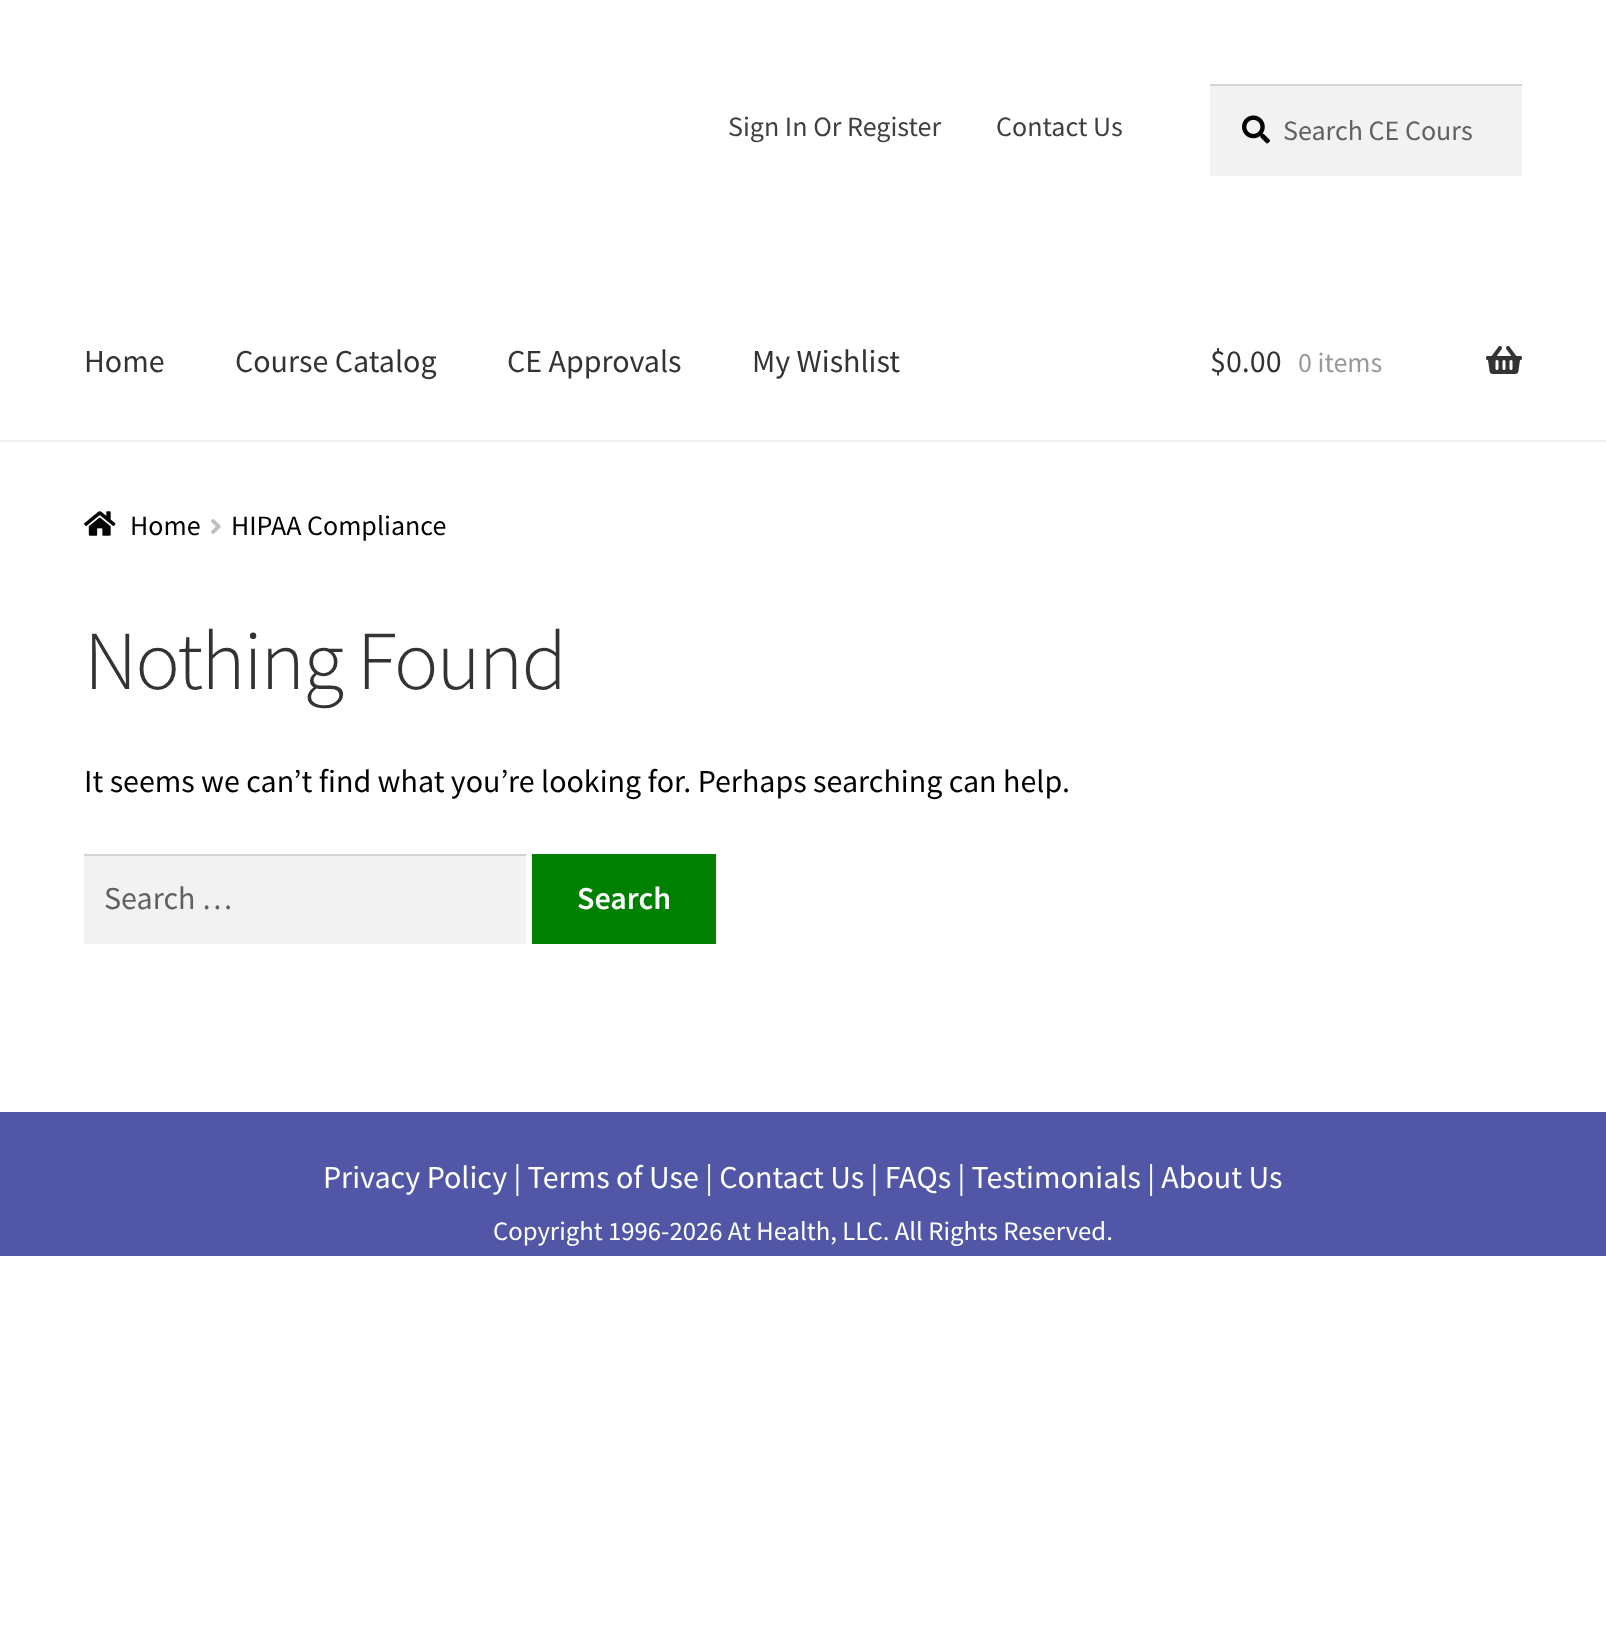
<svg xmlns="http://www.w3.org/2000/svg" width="1606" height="1629">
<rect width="100%" height="100%" fill="#fff"/>
<rect y="440" width="1606" height="2" fill="#f0f0f0"/>
<text x="728" y="136" style="font-family:Source Sans Pro;font-size:28px;fill:#404040">Sign In Or Register</text>
<text x="996" y="136" style="font-family:Source Sans Pro;font-size:28px;fill:#404040">Contact Us</text>
<rect x="1210" y="86" width="312" height="90" fill="#f2f2f2"/>
<image x="1242" y="115" width="28" height="29" href="media/1.png"/>
<rect x="1210" y="84" width="312" height="2" fill="#d4d4d4"/>
<text x="1283" y="140" style="font-family:Source Sans Pro;font-size:28px;fill:#616161">Search CE Cours</text>
<text x="84" y="372" style="font-family:Source Sans Pro;font-size:32px;fill:#333">Home</text>
<text x="235" y="372" style="font-family:Source Sans Pro;font-size:32px;fill:#333">Course Catalog</text>
<text x="507" y="372" style="font-family:Source Sans Pro;font-size:32px;fill:#333">CE Approvals</text>
<text x="752" y="372" style="font-family:Source Sans Pro;font-size:32px;fill:#333">My Wishlist</text>
<text x="1210" y="372" style="font-family:Source Sans Pro;font-size:32px;fill:#333">$0.00</text>
<text x="1298" y="372" style="font-family:Source Sans Pro;font-size:28px;fill:#999">0 items</text>
<image x="1486" y="346" width="36" height="28" href="media/2.png"/>
<image x="84" y="511" width="32" height="25" href="media/3.png"/>
<text x="130" y="535" style="font-family:Source Sans Pro;font-size:28px;fill:#000">Home</text>
<image x="211" y="519" width="10" height="16" href="media/4.png"/>
<text x="231" y="535" style="font-family:Source Sans Pro;font-size:28px;fill:#000">HIPAA Compliance</text>
<text x="84" y="689" style="font-family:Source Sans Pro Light;font-size:83.75px;font-weight:300;letter-spacing:-2px;fill:#333">Nothing Found</text>
<text x="84" y="792" style="font-family:Source Sans Pro;font-size:32px;fill:#000">It seems we can’t find what you’re looking for. Perhaps searching can help.</text>
<rect x="84" y="856" width="442" height="88" fill="#f2f2f2"/>
<rect x="84" y="854" width="442" height="2" fill="#d4d4d4"/>
<text x="104" y="909" style="font-family:Source Sans Pro;font-size:32px;fill:#616161">Search …</text>
<rect x="532" y="854" width="184" height="90" fill="#008000"/>
<text x="577" y="909" style="font-family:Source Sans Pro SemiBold;font-size:32px;font-weight:600;fill:#fff">Search</text>
<rect y="1112" width="1606" height="144" fill="#5157a6"/>
<text x="323" y="1188" style="font-family:Source Sans Pro;font-size:32px;fill:#fff">Privacy Policy | Terms of Use | Contact Us | FAQs | Testimonials | About Us</text>
<text x="493" y="1240" style="font-family:Source Sans Pro;font-size:26.7px;fill:#fff">Copyright 1996-2026 At Health, LLC. All Rights Reserved.</text>
</svg>
